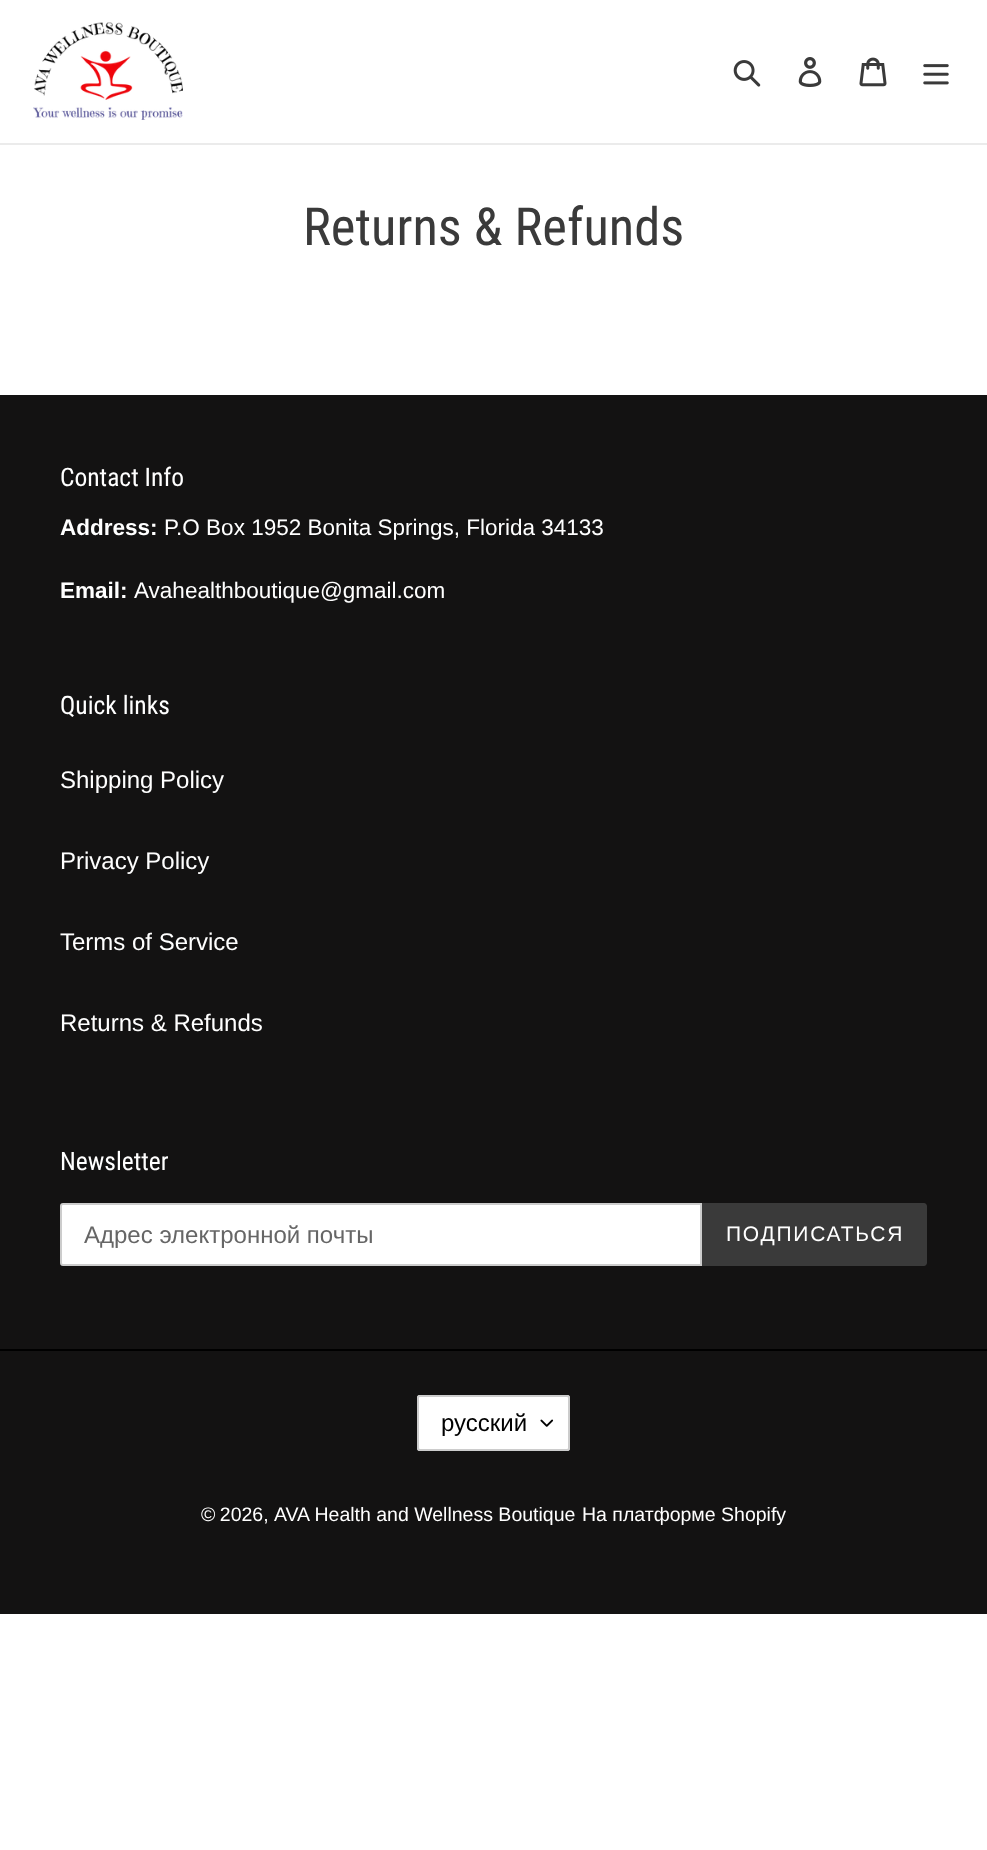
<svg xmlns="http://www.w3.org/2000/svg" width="987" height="1850">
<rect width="100%" height="100%" fill="#fff"/>
<rect y="143" width="987" height="2" fill="#ebebeb"/>
<image x="33" y="22" width="150" height="98" href="media/1.png"/>
<image x="733" y="60" width="28" height="27" href="media/2.png"/>
<image x="798" y="57" width="24" height="30" href="media/3.png"/>
<image x="859" y="57" width="28" height="30" href="media/4.png"/>
<image x="923" y="64" width="26" height="21" href="media/5.png"/>
<text x="303" y="245" style="font-family:Roboto Condensed;font-size:52.5px;fill:#3a3a3a">Returns &amp; Refunds</text>
<rect y="395" width="987" height="1219" fill="#131212"/>
<text x="60" y="486" style="font-family:Roboto Condensed;font-size:25.5px;fill:#fff">Contact Info</text>
<text x="60" y="535" style="font-family:Liberation Sans;font-size:22.5px;font-weight:bold;fill:#fff">Address:</text>
<text x="164" y="535" style="font-family:Liberation Sans;font-size:22.5px;fill:#fff">P.O Box 1952 Bonita Springs, Florida 34133</text>
<text x="60" y="598" style="font-family:Liberation Sans;font-size:22.5px;font-weight:bold;fill:#fff">Email:</text>
<text x="134" y="598" style="font-family:Liberation Sans;font-size:22.5px;fill:#fff">Avahealthboutique@gmail.com</text>
<text x="60" y="714" style="font-family:Roboto Condensed;font-size:25.5px;fill:#fff">Quick links</text>
<text x="60" y="788" style="font-family:Liberation Sans;font-size:24px;fill:#fff">Shipping Policy</text>
<text x="60" y="869" style="font-family:Liberation Sans;font-size:24px;fill:#fff">Privacy Policy</text>
<text x="60" y="950" style="font-family:Liberation Sans;font-size:24px;fill:#fff">Terms of Service</text>
<text x="60" y="1031" style="font-family:Liberation Sans;font-size:24px;fill:#fff">Returns &amp; Refunds</text>
<text x="60" y="1170" style="font-family:Roboto Condensed;font-size:25.5px;fill:#fff">Newsletter</text>
<path d="M63 1204h638v61h-638c-1 0-2-1-2-2v-57c0-1 1-2 2-2z" fill="#fff" stroke="#ccc" stroke-width="2"/>
<text x="84" y="1243" style="font-family:Liberation Sans;font-size:24px;fill:#666">Адрес электронной почты</text>
<path d="M702 1203h222c1.5 0 3 1.5 3 3v57c0 1.5-1.5 3-3 3h-222z" fill="#3a3a3a"/>
<text x="726" y="1241" style="font-family:Liberation Sans;font-size:21px;letter-spacing:1.75px;fill:#fff">ПОДПИСАТЬСЯ</text>
<rect y="1349" width="987" height="2" fill="#000"/>
<rect x="417" y="1395" width="153" height="56" rx="3" fill="#fff"/>
<image x="540" y="1419" width="14" height="8" href="media/6.png"/>
<rect x="418" y="1396" width="151" height="54" rx="2" fill="none" stroke="#ccc" stroke-width="2"/>
<text x="441" y="1431" style="font-family:Liberation Sans;font-size:24px;fill:#000">русский</text>
<text x="201" y="1521" word-spacing="-1" style="font-family:Liberation Sans;font-size:19.5px;fill:#fff">© 2026,</text>
<text x="274" y="1521" style="font-family:Liberation Sans;font-size:19.5px;fill:#fff">AVA Health and Wellness Boutique</text>
<text x="582" y="1521" style="font-family:Liberation Sans;font-size:19.5px;fill:#fff">На платформе Shopify</text>
</svg>
